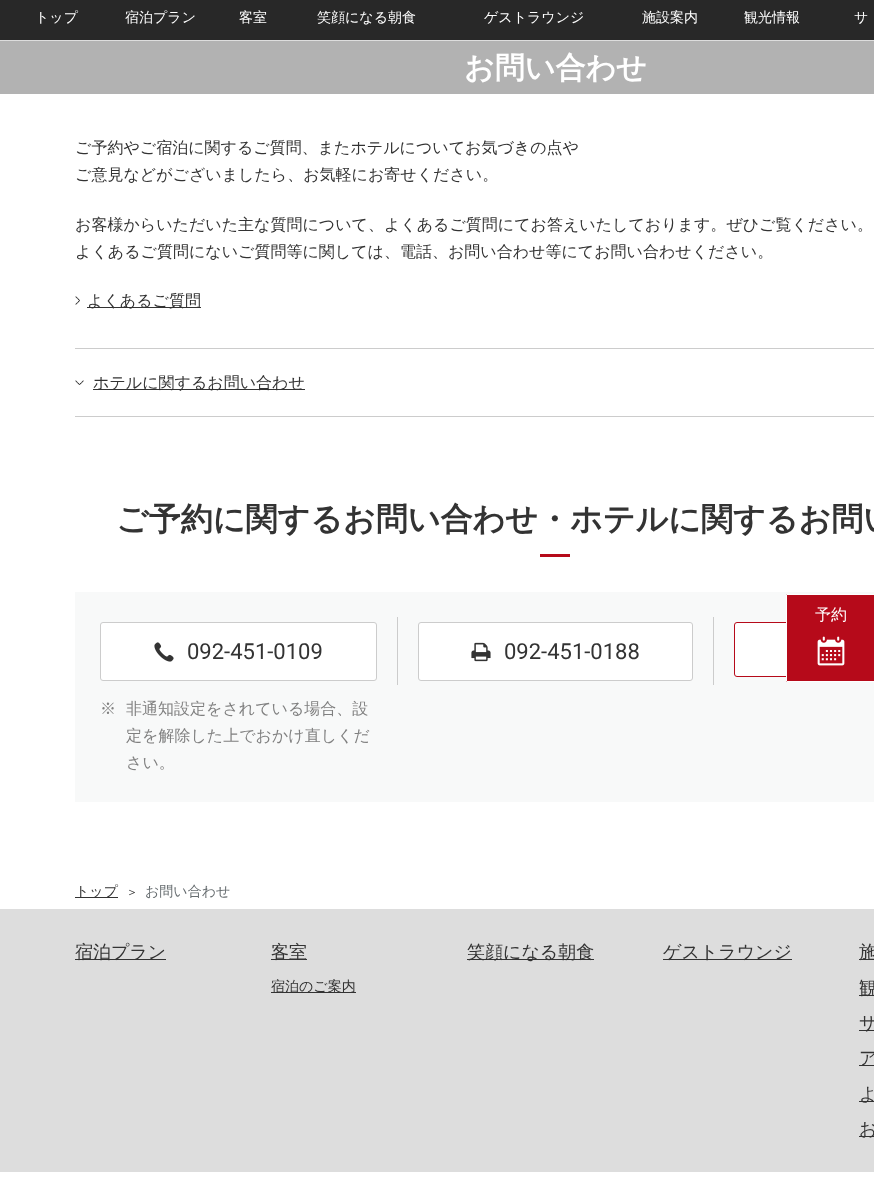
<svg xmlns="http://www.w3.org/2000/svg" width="874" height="1187">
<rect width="100%" height="100%" fill="#fff"/>
<rect width="874" height="40" fill="#282828"/>
<text x="35" y="22" style="font-family:WenQuanYi Zen Hei;font-size:14px;font-weight:500;fill:#fff">トップ</text>
<text x="125" y="22" style="font-family:WenQuanYi Zen Hei;font-size:14px;font-weight:500;fill:#fff">宿泊プラン</text>
<text x="239" y="22" style="font-family:WenQuanYi Zen Hei;font-size:14px;font-weight:500;fill:#fff">客室</text>
<text x="317" y="22" style="font-family:WenQuanYi Zen Hei;font-size:14px;font-weight:500;fill:#fff">笑顔になる朝食</text>
<text x="484" y="22" style="font-family:WenQuanYi Zen Hei;font-size:14px;font-weight:500;fill:#fff">ゲストラウンジ</text>
<text x="642" y="22" style="font-family:WenQuanYi Zen Hei;font-size:14px;font-weight:500;fill:#fff">施設案内</text>
<text x="744" y="22" style="font-family:WenQuanYi Zen Hei;font-size:14px;font-weight:500;fill:#fff">観光情報</text>
<text x="854" y="22" style="font-family:WenQuanYi Zen Hei;font-size:14px;font-weight:500;fill:#fff">サ</text>
<rect y="41" width="874" height="53" fill="#b2b2b2"/>
<rect y="40" width="874" height="1" fill="#ddd"/>
<text x="464" y="78" style="font-family:WenQuanYi Zen Hei;font-size:30px;font-weight:bold;fill:#fff">お問い合わせ</text>
<rect x="75" y="592" width="799" height="210" fill="#f8f9f9"/>
<rect x="734.5" y="622.5" width="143" height="54" rx="2.5" fill="#fff" stroke="#b60a1a"/>
<path d="M788 594h86v88h-86c-1 0-2-1-2-2v-84c0-1 1-2 2-2z" fill="#b60a1a"/>
<rect x="787" y="594" width="87" height="1" fill="#fff"/>
<rect x="787" y="681" width="87" height="1" fill="#fff"/>
<rect x="786" y="595" width="1" height="86" fill="#fff"/>
<text x="815" y="620" style="font-family:WenQuanYi Zen Hei;font-size:16px;font-weight:500;fill:#fff">予約</text>
<image x="817" y="636" width="28" height="30" href="media/1.png"/>
<text x="75" y="153" style="font-family:WenQuanYi Zen Hei;font-size:16px;font-weight:500;fill:#333">ご予約やご宿泊に関するご質問、またホテルについてお気づきの点や</text>
<text x="75" y="180" style="font-family:WenQuanYi Zen Hei;font-size:16px;font-weight:500;fill:#333">ご意見などがございましたら、お気軽にお寄せください。</text>
<text x="75" y="230" style="font-family:WenQuanYi Zen Hei;font-size:16px;font-weight:500;fill:#333">お客様からいただいた主な質問について、よくあるご質問にてお答えいたしております。ぜひご覧ください。</text>
<text x="75" y="257" style="font-family:WenQuanYi Zen Hei;font-size:16px;font-weight:500;fill:#333">よくあるご質問にないご質問等に関しては、電話、お問い合わせ等にてお問い合わせください。</text>
<image x="75" y="296" width="5" height="9" href="media/2.png"/>
<rect x="87" y="307" width="114" height="1" fill="#333"/>
<text x="87" y="306" style="font-family:WenQuanYi Zen Hei;font-size:16px;font-weight:500;fill:#333">よくあるご質問</text>
<rect x="75" y="348" width="799" height="1" fill="#ccc"/>
<rect x="75" y="416" width="799" height="1" fill="#ccc"/>
<image x="75" y="380" width="9" height="5" href="media/3.png"/>
<rect x="93" y="389" width="212" height="1" fill="#333"/>
<text x="93" y="388" style="font-family:WenQuanYi Zen Hei;font-size:16px;font-weight:500;fill:#333">ホテルに関するお問い合わせ</text>
<text x="116" y="530" style="font-family:WenQuanYi Zen Hei;font-size:32px;font-weight:bold;fill:#333">ご予約に関するお問い合わせ・ホテルに関するお問い</text>
<rect x="540" y="554" width="30" height="3" fill="#b60a1a"/>
<rect x="100.5" y="622.5" width="276" height="58" rx="2.5" fill="#fff" stroke="#ccc"/>
<image x="154" y="642" width="20" height="20" href="media/4.png"/>
<text x="187" y="659" style="font-family:Roboto;font-size:22px;fill:#333">092-451-0109</text>
<text x="100" y="714" style="font-family:WenQuanYi Zen Hei;font-size:16px;font-weight:500;fill:#808080">※</text>
<text x="126" y="714" style="font-family:WenQuanYi Zen Hei;font-size:16px;font-weight:500;fill:#808080">非通知設定をされている場合、設</text>
<text x="126" y="741" style="font-family:WenQuanYi Zen Hei;font-size:16px;font-weight:500;fill:#808080">定を解除した上でおかけ直しくだ</text>
<text x="126" y="768" style="font-family:WenQuanYi Zen Hei;font-size:16px;font-weight:500;fill:#808080">さい。</text>
<rect x="397" y="617" width="1" height="68" fill="#ccc"/>
<rect x="418.5" y="622.5" width="274" height="58" rx="2.5" fill="#fff" stroke="#ccc"/>
<image x="471" y="642" width="20" height="20" href="media/5.png"/>
<text x="504" y="659" style="font-family:Roboto;font-size:22px;fill:#333">092-451-0188</text>
<rect x="713" y="617" width="1" height="68" fill="#ccc"/>
<rect x="75" y="897" width="43" height="1" fill="#333"/>
<text x="75" y="896" style="font-family:WenQuanYi Zen Hei;font-size:14px;font-weight:500;fill:#333">トップ</text>
<text x="126" y="896" style="font-family:WenQuanYi Zen Hei;font-size:12px;font-weight:500;fill:#333">＞</text>
<text x="145" y="896" style="font-family:WenQuanYi Zen Hei;font-size:14px;font-weight:500;fill:#676d70">お問い合わせ</text>
<rect y="909" width="874" height="263" fill="#ddd"/>
<rect x="75" y="959" width="91" height="1" fill="#333"/>
<text x="75" y="958" style="font-family:WenQuanYi Zen Hei;font-size:18px;font-weight:500;fill:#333">宿泊プラン</text>
<rect x="271" y="959" width="36" height="1" fill="#333"/>
<text x="271" y="958" style="font-family:WenQuanYi Zen Hei;font-size:18px;font-weight:500;fill:#333">客室</text>
<rect x="271" y="992" width="85" height="1" fill="#333"/>
<text x="271" y="991" style="font-family:WenQuanYi Zen Hei;font-size:14px;font-weight:500;fill:#333">宿泊のご案内</text>
<rect x="467" y="959" width="127" height="1" fill="#333"/>
<text x="467" y="958" style="font-family:WenQuanYi Zen Hei;font-size:18px;font-weight:500;fill:#333">笑顔になる朝食</text>
<rect x="663" y="959" width="129" height="1" fill="#333"/>
<text x="663" y="958" style="font-family:WenQuanYi Zen Hei;font-size:18px;font-weight:500;fill:#333">ゲストラウンジ</text>
<rect x="859" y="959" width="15" height="1" fill="#333"/>
<text x="859" y="958" style="font-family:WenQuanYi Zen Hei;font-size:18px;font-weight:500;fill:#333">施</text>
<rect x="859" y="995" width="15" height="1" fill="#333"/>
<text x="859" y="994" style="font-family:WenQuanYi Zen Hei;font-size:18px;font-weight:500;fill:#333">観</text>
<rect x="859" y="1030" width="15" height="1" fill="#333"/>
<text x="859" y="1029" style="font-family:WenQuanYi Zen Hei;font-size:18px;font-weight:500;fill:#333">サ</text>
<rect x="859" y="1065" width="15" height="1" fill="#333"/>
<text x="859" y="1064" style="font-family:WenQuanYi Zen Hei;font-size:18px;font-weight:500;fill:#333">ア</text>
<rect x="859" y="1101" width="15" height="1" fill="#333"/>
<text x="859" y="1100" style="font-family:WenQuanYi Zen Hei;font-size:18px;font-weight:500;fill:#333">よ</text>
<rect x="859" y="1136" width="15" height="1" fill="#333"/>
<text x="859" y="1135" style="font-family:WenQuanYi Zen Hei;font-size:18px;font-weight:500;fill:#333">お</text>
</svg>
